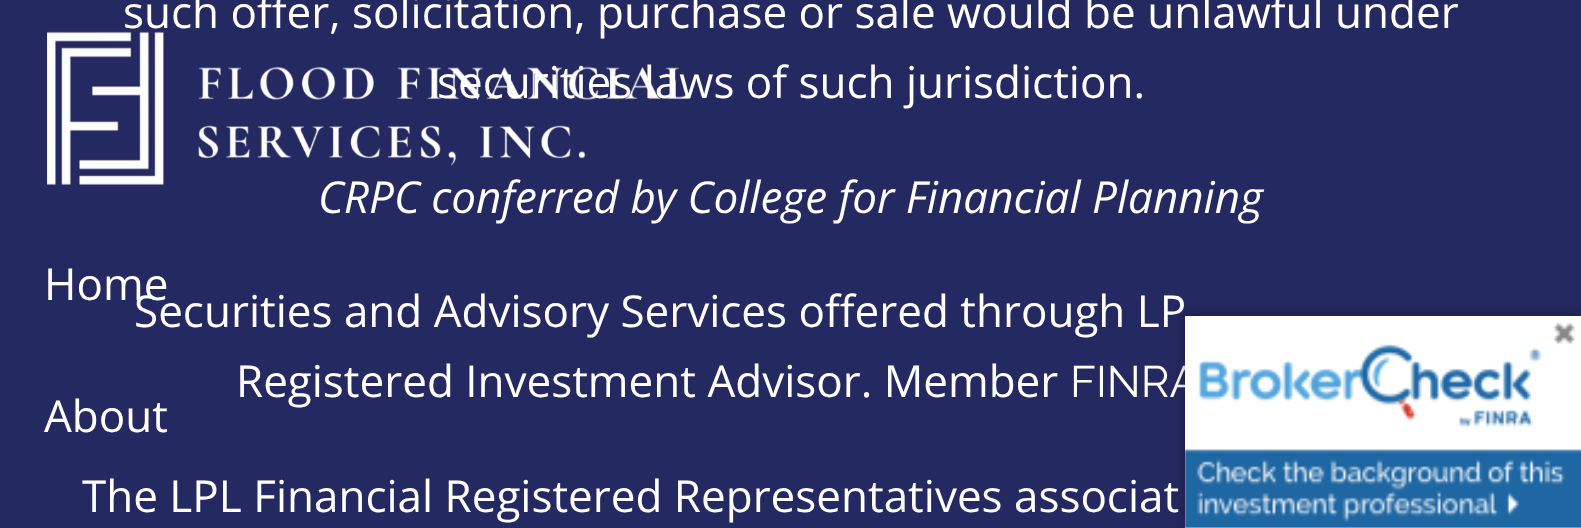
<svg xmlns="http://www.w3.org/2000/svg" width="1581" height="528">
<defs>
<clipPath id="clip1"><path d="M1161 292h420v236h-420zm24 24h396v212h-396z" clip-rule="evenodd"/></clipPath>
</defs>
<rect width="100%" height="100%" fill="#252961"/>
<text x="123" y="28" style="font-family:Open Sans;font-size:44px;fill:#fff">such offer, solicitation, purchase or sale would be unlawful under</text>
<text x="437" y="98" style="font-family:Open Sans;font-size:44px;fill:#fff">securities laws of such jurisdiction.</text>
<text x="318" y="213" style="font-family:Open Sans;font-size:44px;font-style:italic;fill:#fff">CRPC conferred by College for Financial Planning</text>
<text x="134" y="327" style="font-family:Open Sans;font-size:44px;fill:#fff">Securities and Advisory Services offered through LP</text>
<text x="236" y="397" style="font-family:Open Sans;font-size:44px;fill:#fff">Registered Investment Advisor. Member</text>
<text x="1070" y="397" style="font-family:Raleway;font-size:44px;font-weight:100;fill:#fff">FINRA</text>
<text x="82" y="512" style="font-family:Open Sans;font-size:44px;fill:#fff">The LPL Financial Registered Representatives associat</text>
<image x="47" y="31" width="644" height="154" href="media/1.png"/>
<text x="44" y="300" style="font-family:Open Sans;font-size:44px;fill:#fff">Home</text>
<text x="44" y="432" style="font-family:Open Sans;font-size:44px;fill:#fff">About</text>
<rect x="1185" y="316" width="396" height="212" fill="#fff"/>
<g clip-path="url(#clip1)">
<rect x="1183" y="314" width="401" height="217" fill="#00000040" filter="blur(7px)"/>
</g>
<image x="1185" y="322" width="396" height="206" href="media/2.png"/>
</svg>
